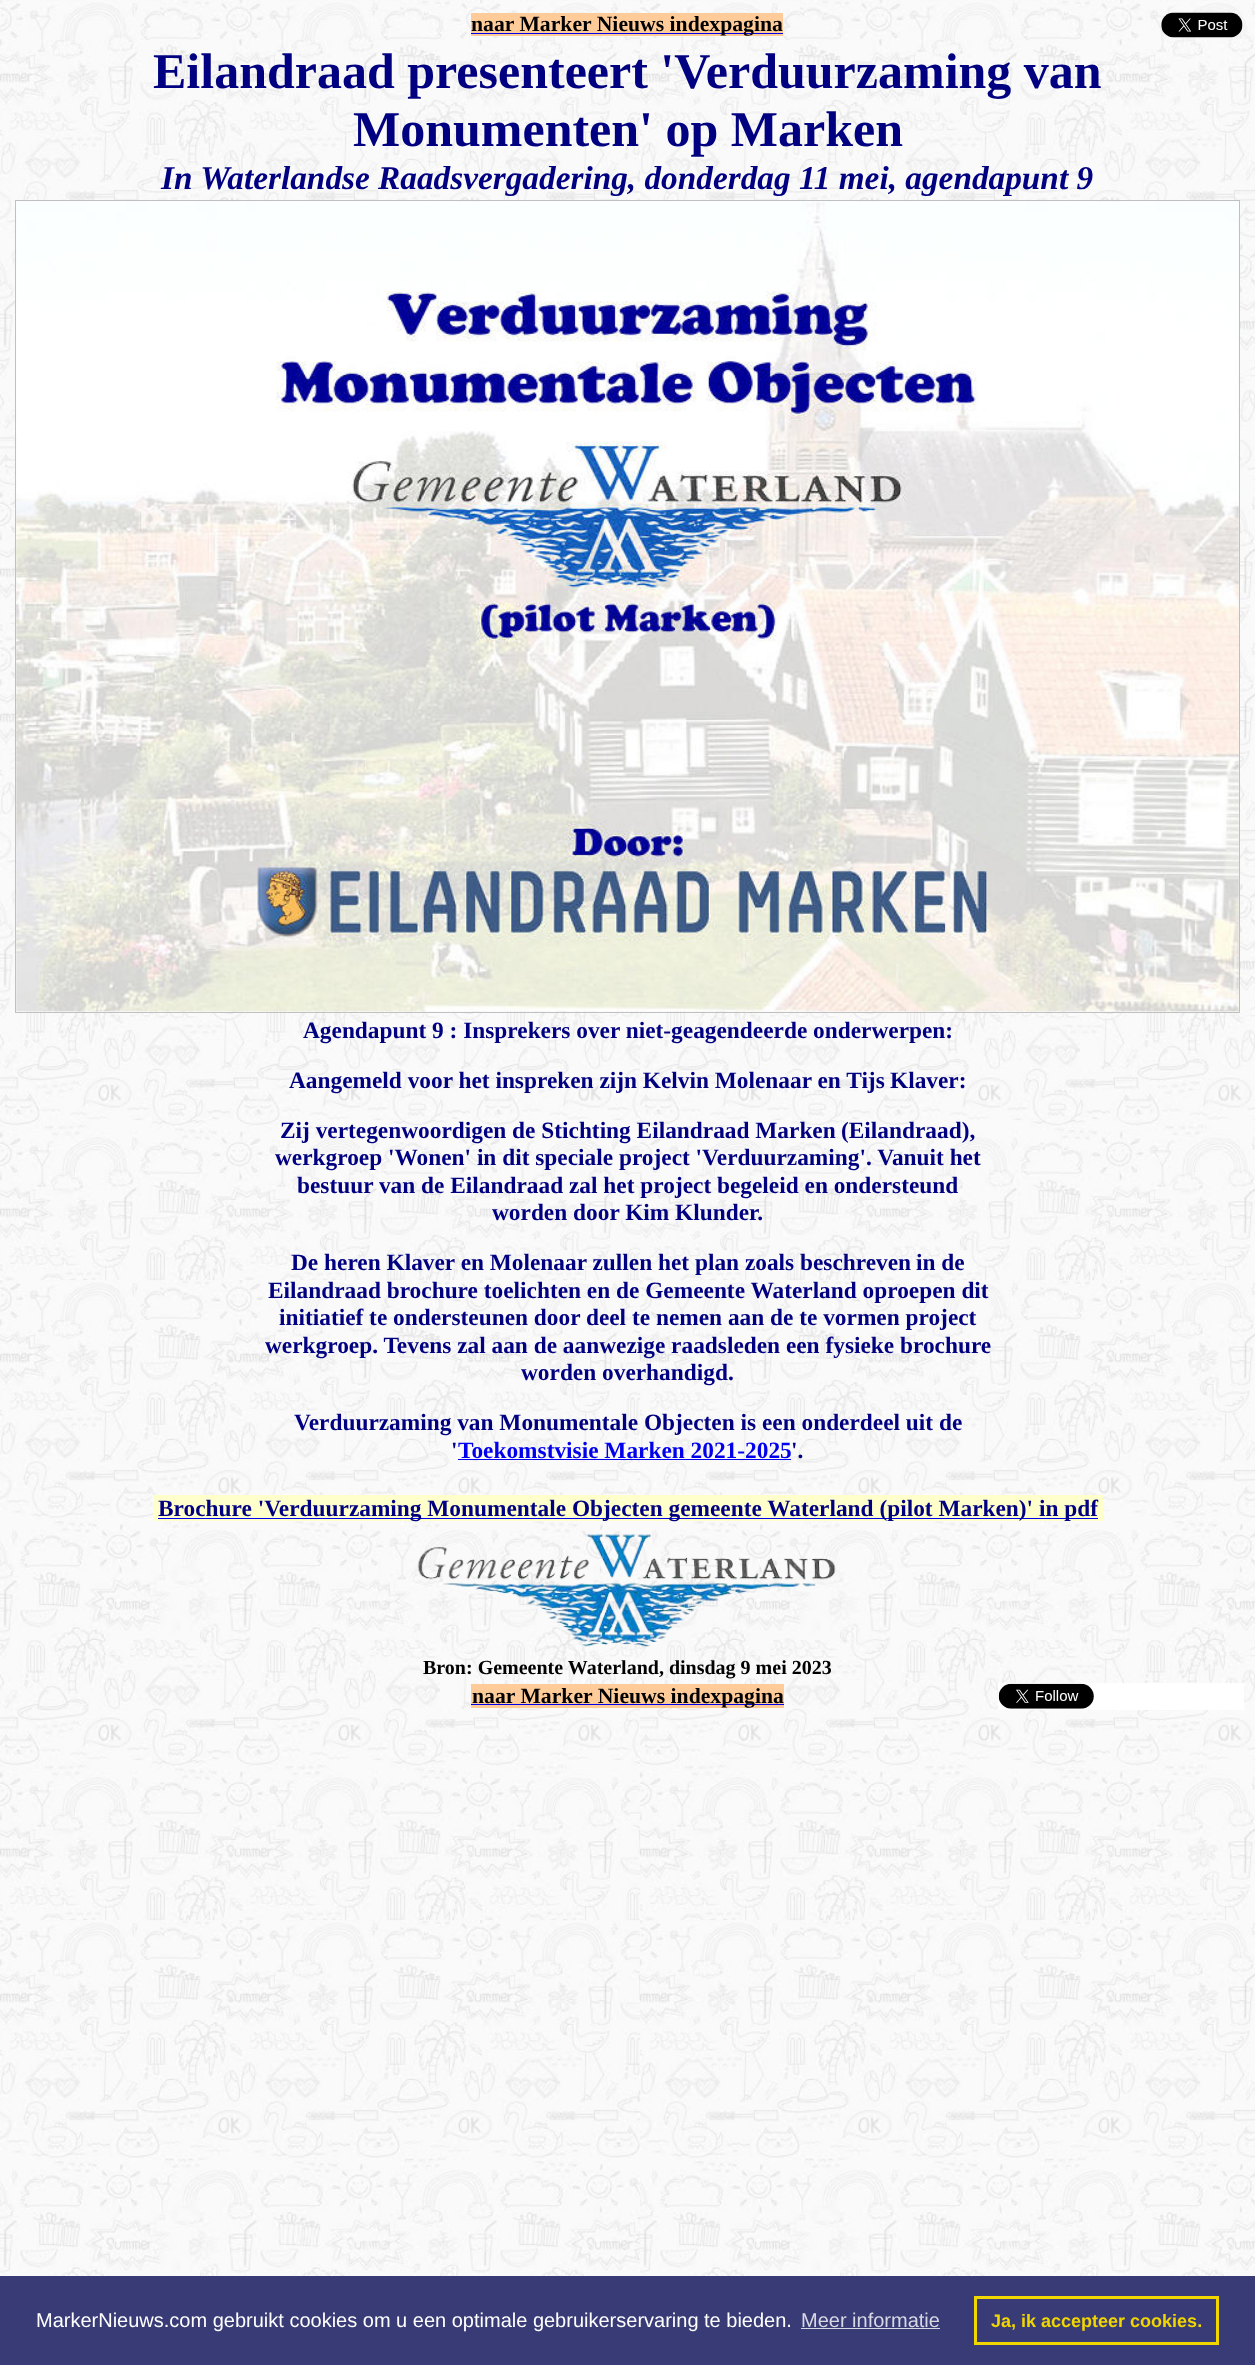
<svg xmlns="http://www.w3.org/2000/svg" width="1255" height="2365">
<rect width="100%" height="100%" fill="#fff"/>
<image x="0" y="0" width="1255" height="2276" href="media/1.png"/>
<rect x="471" y="13" width="312" height="23" fill="#fc9"/>
<rect x="471" y="33" width="312" height="1" fill="#00e"/>
<text x="471" y="31" style="font-family:Liberation Serif;font-size:21.7px;font-weight:bold;fill:#000">naar Marker Nieuws indexpagina</text>
<image x="1161" y="12" width="82" height="26" href="media/2.png"/>
<text x="153" y="88" style="font-family:Liberation Serif;font-size:50px;font-weight:bold;fill:#000080">Eilandraad presenteert 'Verduurzaming van</text>
<text x="353" y="146" style="font-family:Liberation Serif;font-size:50px;font-weight:bold;fill:#000080">Monumenten' op Marken</text>
<text x="161" y="189" style="font-family:Liberation Serif;font-size:33.3px;font-weight:bold;font-style:italic;fill:#000080">In Waterlandse Raadsvergadering, donderdag 11 mei, agendapunt 9</text>
<rect x="15.5" y="200.5" width="1224" height="812" fill="none" stroke="#c0c0c0"/>
<image x="16" y="201" width="1223" height="811" href="media/3.png"/>
<text x="303" y="1038" style="font-family:Liberation Serif;font-size:23.35px;font-weight:bold;fill:#000080">Agendapunt 9 : Insprekers over niet-geagendeerde onderwerpen:</text>
<text x="289" y="1088" style="font-family:Liberation Serif;font-size:23.35px;font-weight:bold;fill:#000080">Aangemeld voor het inspreken zijn Kelvin Molenaar en Tijs</text>
<text x="890" y="1088" style="font-family:Liberation Serif;font-size:23.35px;font-weight:bold;fill:#000080">Klaver:</text>
<text x="280" y="1138" style="font-family:Liberation Serif;font-size:23.35px;font-weight:bold;fill:#000080">Zij vertegenwoordigen de Stichting Eilandraad Marken</text>
<text x="841" y="1138" style="font-family:Liberation Serif;font-size:23.35px;font-weight:bold;fill:#000080">(Eilandraad),</text>
<text x="275" y="1165" style="font-family:Liberation Serif;font-size:23.35px;font-weight:bold;fill:#000080">werkgroep 'Wonen' in dit speciale project 'Verduurzaming'. Vanuit het</text>
<text x="297" y="1193" style="font-family:Liberation Serif;font-size:23.35px;font-weight:bold;fill:#000080">bestuur van de Eilandraad zal het project begeleid en ondersteund</text>
<text x="492" y="1220" style="font-family:Liberation Serif;font-size:23.35px;font-weight:bold;fill:#000080">worden door Kim Klunder.</text>
<text x="291" y="1270" style="font-family:Liberation Serif;font-size:23.35px;font-weight:bold;fill:#000080">De heren Klaver en Molenaar zullen het plan zoals beschreven</text>
<text x="916" y="1270" style="font-family:Liberation Serif;font-size:23.35px;font-weight:bold;fill:#000080">in de</text>
<text x="268" y="1298" style="font-family:Liberation Serif;font-size:23.35px;font-weight:bold;fill:#000080">Eilandraad brochure toelichten en de Gemeente Waterland oproepen dit</text>
<text x="279" y="1325" style="font-family:Liberation Serif;font-size:23.35px;font-weight:bold;fill:#000080">initiatief te ondersteunen door deel te nemen aan de te vormen project</text>
<text x="265" y="1353" style="font-family:Liberation Serif;font-size:23.35px;font-weight:bold;fill:#000080">werkgroep. Tevens zal aan de aanwezige raadsleden een fysieke brochure</text>
<text x="521" y="1380" style="font-family:Liberation Serif;font-size:23.35px;font-weight:bold;fill:#000080">worden overhandigd.</text>
<text x="294" y="1430" style="font-family:Liberation Serif;font-size:23.35px;font-weight:bold;fill:#000080">Verduurzaming van Monumentale Objecten is een onderdeel uit de</text>
<text x="451" y="1458" style="font-family:Liberation Serif;font-size:23.35px;font-weight:bold;fill:#000080">'</text>
<text x="458" y="1458" style="font-family:Liberation Serif;font-size:23.35px;font-weight:bold;fill:#00e">Toekomstvisie Marken 2021-2025</text>
<rect x="458" y="1459" width="333" height="1" fill="#00e"/>
<text x="791" y="1458" style="font-family:Liberation Serif;font-size:23.35px;font-weight:bold;fill:#000080">'.</text>
<rect x="153" y="1495" width="950" height="26" fill="#ffc"/>
<rect x="158" y="1518" width="940" height="1" fill="#00e"/>
<text x="158" y="1516" style="font-family:Liberation Serif;font-size:23.35px;font-weight:bold;fill:#000080">Brochure 'Verduurzaming Monumentale Objecten gemeente Waterland (pilot Marken)' in pdf</text>
<image x="417" y="1533" width="419" height="114" href="media/4.png"/>
<text x="423" y="1674" style="font-family:Liberation Serif;font-size:20px;font-weight:bold;fill:#000">Bron: Gemeente Waterland, dinsdag 9 mei 2023</text>
<rect x="471" y="1684" width="313" height="24" fill="#fc9"/>
<rect x="471" y="1704" width="313" height="1" fill="#00e"/>
<text x="472" y="1703" style="font-family:Liberation Serif;font-size:21.7px;font-weight:bold;fill:#000">naar Marker Nieuws indexpagina</text>
<rect x="998" y="1683" width="246" height="27" fill="#fff"/>
<image x="998" y="1683" width="96" height="26" href="media/5.png"/>
<rect y="2276" width="1255" height="89" fill="#383b75"/>
<text x="36" y="2327" style="font-family:Liberation Sans;font-size:20px;fill:#fff">MarkerNieuws.com gebruikt cookies om u een optimale gebruikerservaring te bieden.</text>
<text x="801" y="2327" style="font-family:Liberation Sans;font-size:20px;fill:#d7d8e3">Meer informatie</text>
<rect x="801" y="2328" width="139" height="1" fill="#d7d8e3"/>
<rect x="975.5" y="2297.5" width="242" height="46" fill="none" stroke="#f1d600" stroke-width="3"/>
<text x="991" y="2327" style="font-family:Liberation Sans;font-size:18px;font-weight:bold;fill:#f1d600">Ja, ik accepteer cookies.</text>
</svg>
